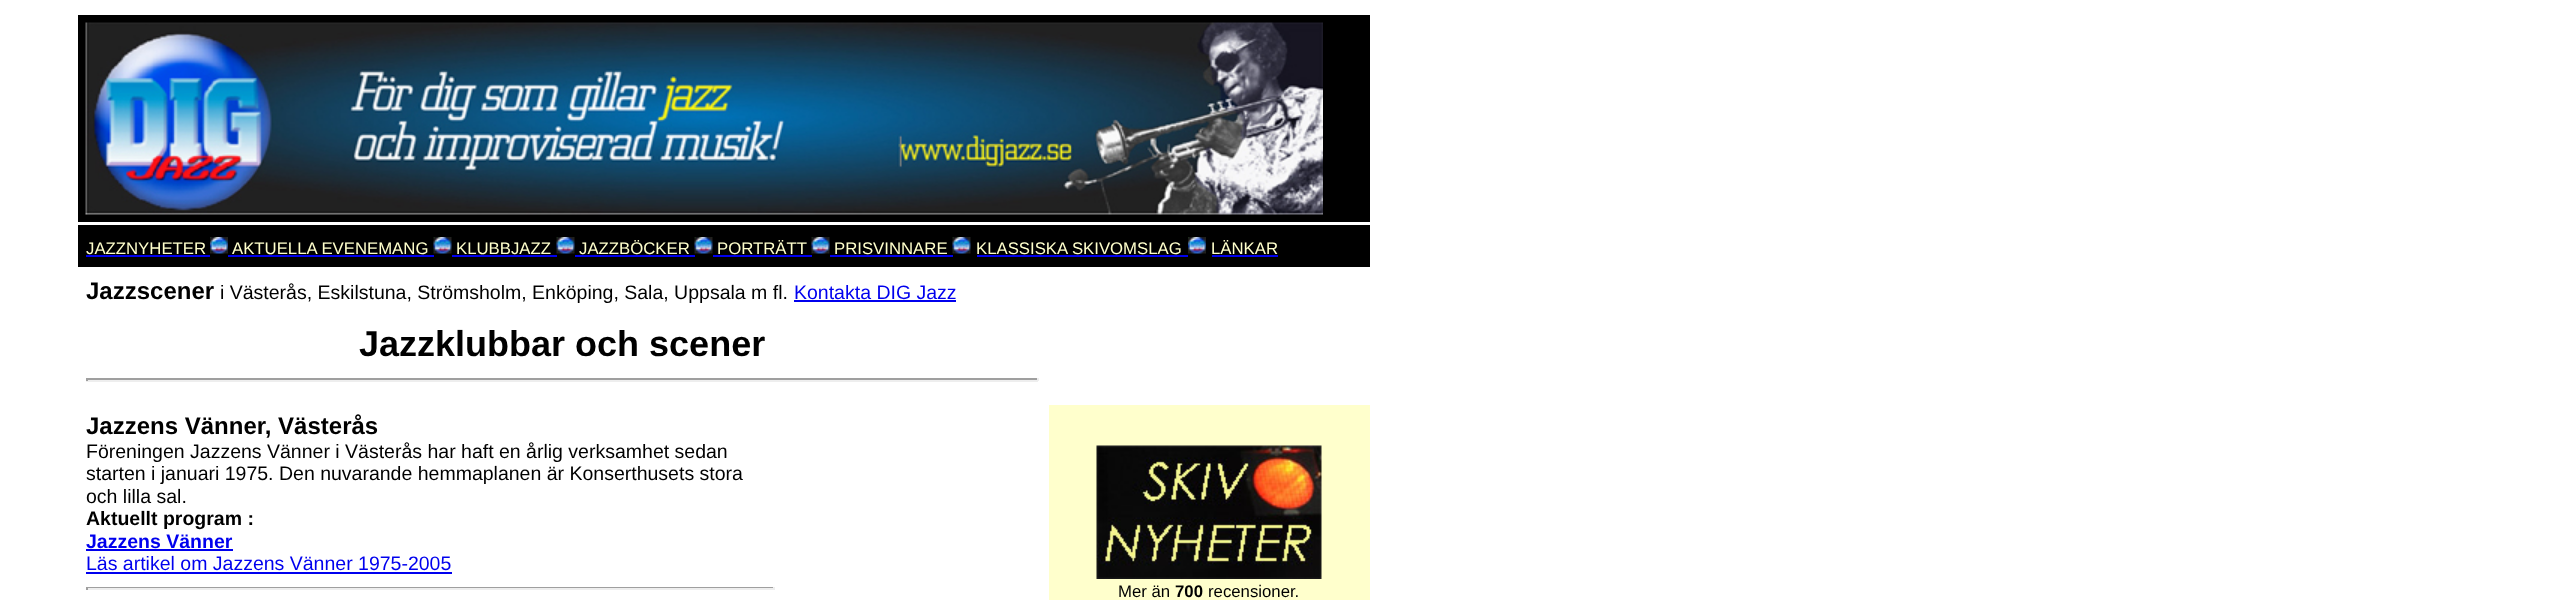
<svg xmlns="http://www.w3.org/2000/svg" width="2567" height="600">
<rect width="100%" height="100%" fill="#fff"/>
<rect x="78" y="15" width="1292" height="207" fill="#000"/>
<image x="85" y="22" width="1238" height="193" href="media/1.png"/>
<rect x="78" y="225" width="1292" height="42" fill="#000"/>
<text x="86" y="254" style="font-family:Liberation Sans;font-size:16.75px;fill:#ffc">JAZZNYHETER</text>
<rect x="86" y="255" width="124" height="2" fill="#00e"/>
<image x="210" y="237" width="18" height="17" href="media/2.png"/>
<text x="232" y="254" style="font-family:Liberation Sans;font-size:16.75px;fill:#ffc">AKTUELLA EVENEMANG</text>
<rect x="228" y="255" width="206" height="2" fill="#00e"/>
<rect x="452" y="255" width="105" height="2" fill="#00e"/>
<image x="433" y="237" width="19" height="17" href="media/3.png"/>
<text x="456" y="254" style="font-family:Liberation Sans;font-size:16.75px;fill:#ffc">KLUBBJAZZ</text>
<image x="556" y="237" width="19" height="17" href="media/3.png"/>
<text x="579" y="254" style="font-family:Liberation Sans;font-size:16.75px;fill:#ffc">JAZZBÖCKER</text>
<rect x="713" y="255" width="99" height="2" fill="#00e"/>
<image x="694" y="237" width="19" height="17" href="media/3.png"/>
<text x="717" y="254" style="font-family:Liberation Sans;font-size:16.75px;fill:#ffc">PORTRÄTT</text>
<image x="811" y="237" width="19" height="17" href="media/4.png"/>
<text x="834" y="254" style="font-family:Liberation Sans;font-size:16.75px;fill:#ffc">PRISVINNARE</text>
<rect x="830" y="255" width="123" height="2" fill="#00e"/>
<image x="952" y="237" width="19" height="17" href="media/4.png"/>
<text x="976" y="254" style="font-family:Liberation Sans;font-size:16.75px;fill:#ffc">KLASSISKA SKIVOMSLAG</text>
<rect x="977" y="255" width="211" height="2" fill="#00e"/>
<image x="1188" y="237" width="18" height="17" href="media/5.png"/>
<text x="1211" y="254" style="font-family:Liberation Sans;font-size:16.75px;fill:#ffc">LÄNKAR</text>
<rect x="1212" y="255" width="66" height="2" fill="#00e"/>
<rect x="575" y="255" width="120" height="2" fill="#00e"/>
<text x="86" y="299" style="font-family:Liberation Sans;font-size:24px;font-weight:bold;fill:#000">Jazzscener</text>
<text x="220" y="299" style="font-family:Liberation Sans;font-size:19.5px;fill:#000">i Västerås, Eskilstuna, Strömsholm, Enköping, Sala, Uppsala m fl.</text>
<text x="794" y="299" style="font-family:Liberation Sans;font-size:19.5px;fill:#00e">Kontakta DIG Jazz</text>
<rect x="794" y="300" width="162" height="2" fill="#00e"/>
<text x="359" y="356" style="font-family:Liberation Sans;font-size:36px;font-weight:bold;fill:#000">Jazzklubbar och scener</text>
<rect x="86" y="378" width="952" height="2" fill="#9f9f9f"/>
<rect x="1037" y="378" width="2" height="3" fill="#eee"/>
<rect x="86" y="380" width="952" height="2" fill="#eee"/>
<rect x="86" y="378" width="2" height="3" fill="#9f9f9f"/>
<text x="86" y="434" style="font-family:Liberation Sans;font-size:24px;font-weight:bold;fill:#000">Jazzens Vänner, Västerås</text>
<text x="86" y="458" style="font-family:Liberation Sans;font-size:19.5px;fill:#000">Föreningen Jazzens Vänner i Västerås har haft en årlig verksamhet sedan</text>
<text x="86" y="480" style="font-family:Liberation Sans;font-size:19.5px;fill:#000">starten i januari 1975. Den nuvarande hemmaplanen är Konserthusets stora</text>
<text x="86" y="503" style="font-family:Liberation Sans;font-size:19.5px;fill:#000">och lilla sal.</text>
<text x="86" y="525" style="font-family:Liberation Sans;font-size:19.5px;font-weight:bold;fill:#000">Aktuellt program :</text>
<text x="86" y="548" style="font-family:Liberation Sans;font-size:19.5px;font-weight:bold;fill:#00e">Jazzens Vänner</text>
<rect x="86" y="549" width="147" height="2" fill="#00e"/>
<text x="86" y="570" style="font-family:Liberation Sans;font-size:19.5px;fill:#00e">Läs artikel om Jazzens Vänner 1975-2005</text>
<rect x="86" y="572" width="366" height="2" fill="#00e"/>
<rect x="86" y="587" width="688" height="1" fill="#9f9f9f"/>
<rect x="773" y="587" width="2" height="3" fill="#eee"/>
<rect x="86" y="588" width="688" height="2" fill="#eee"/>
<rect x="86" y="587" width="2" height="3" fill="#9f9f9f"/>
<rect x="1049" y="405" width="321" height="195" fill="#ffc"/>
<image x="1096" y="445" width="226" height="134" href="media/6.png"/>
<text x="1118" y="597" style="font-family:Liberation Sans;font-size:16.75px;fill:#000">Mer än</text>
<text x="1175" y="597" style="font-family:Liberation Sans;font-size:16.75px;font-weight:bold;fill:#000">700</text>
<text x="1208" y="597" style="font-family:Liberation Sans;font-size:16.75px;fill:#000">recensioner.</text>
</svg>
